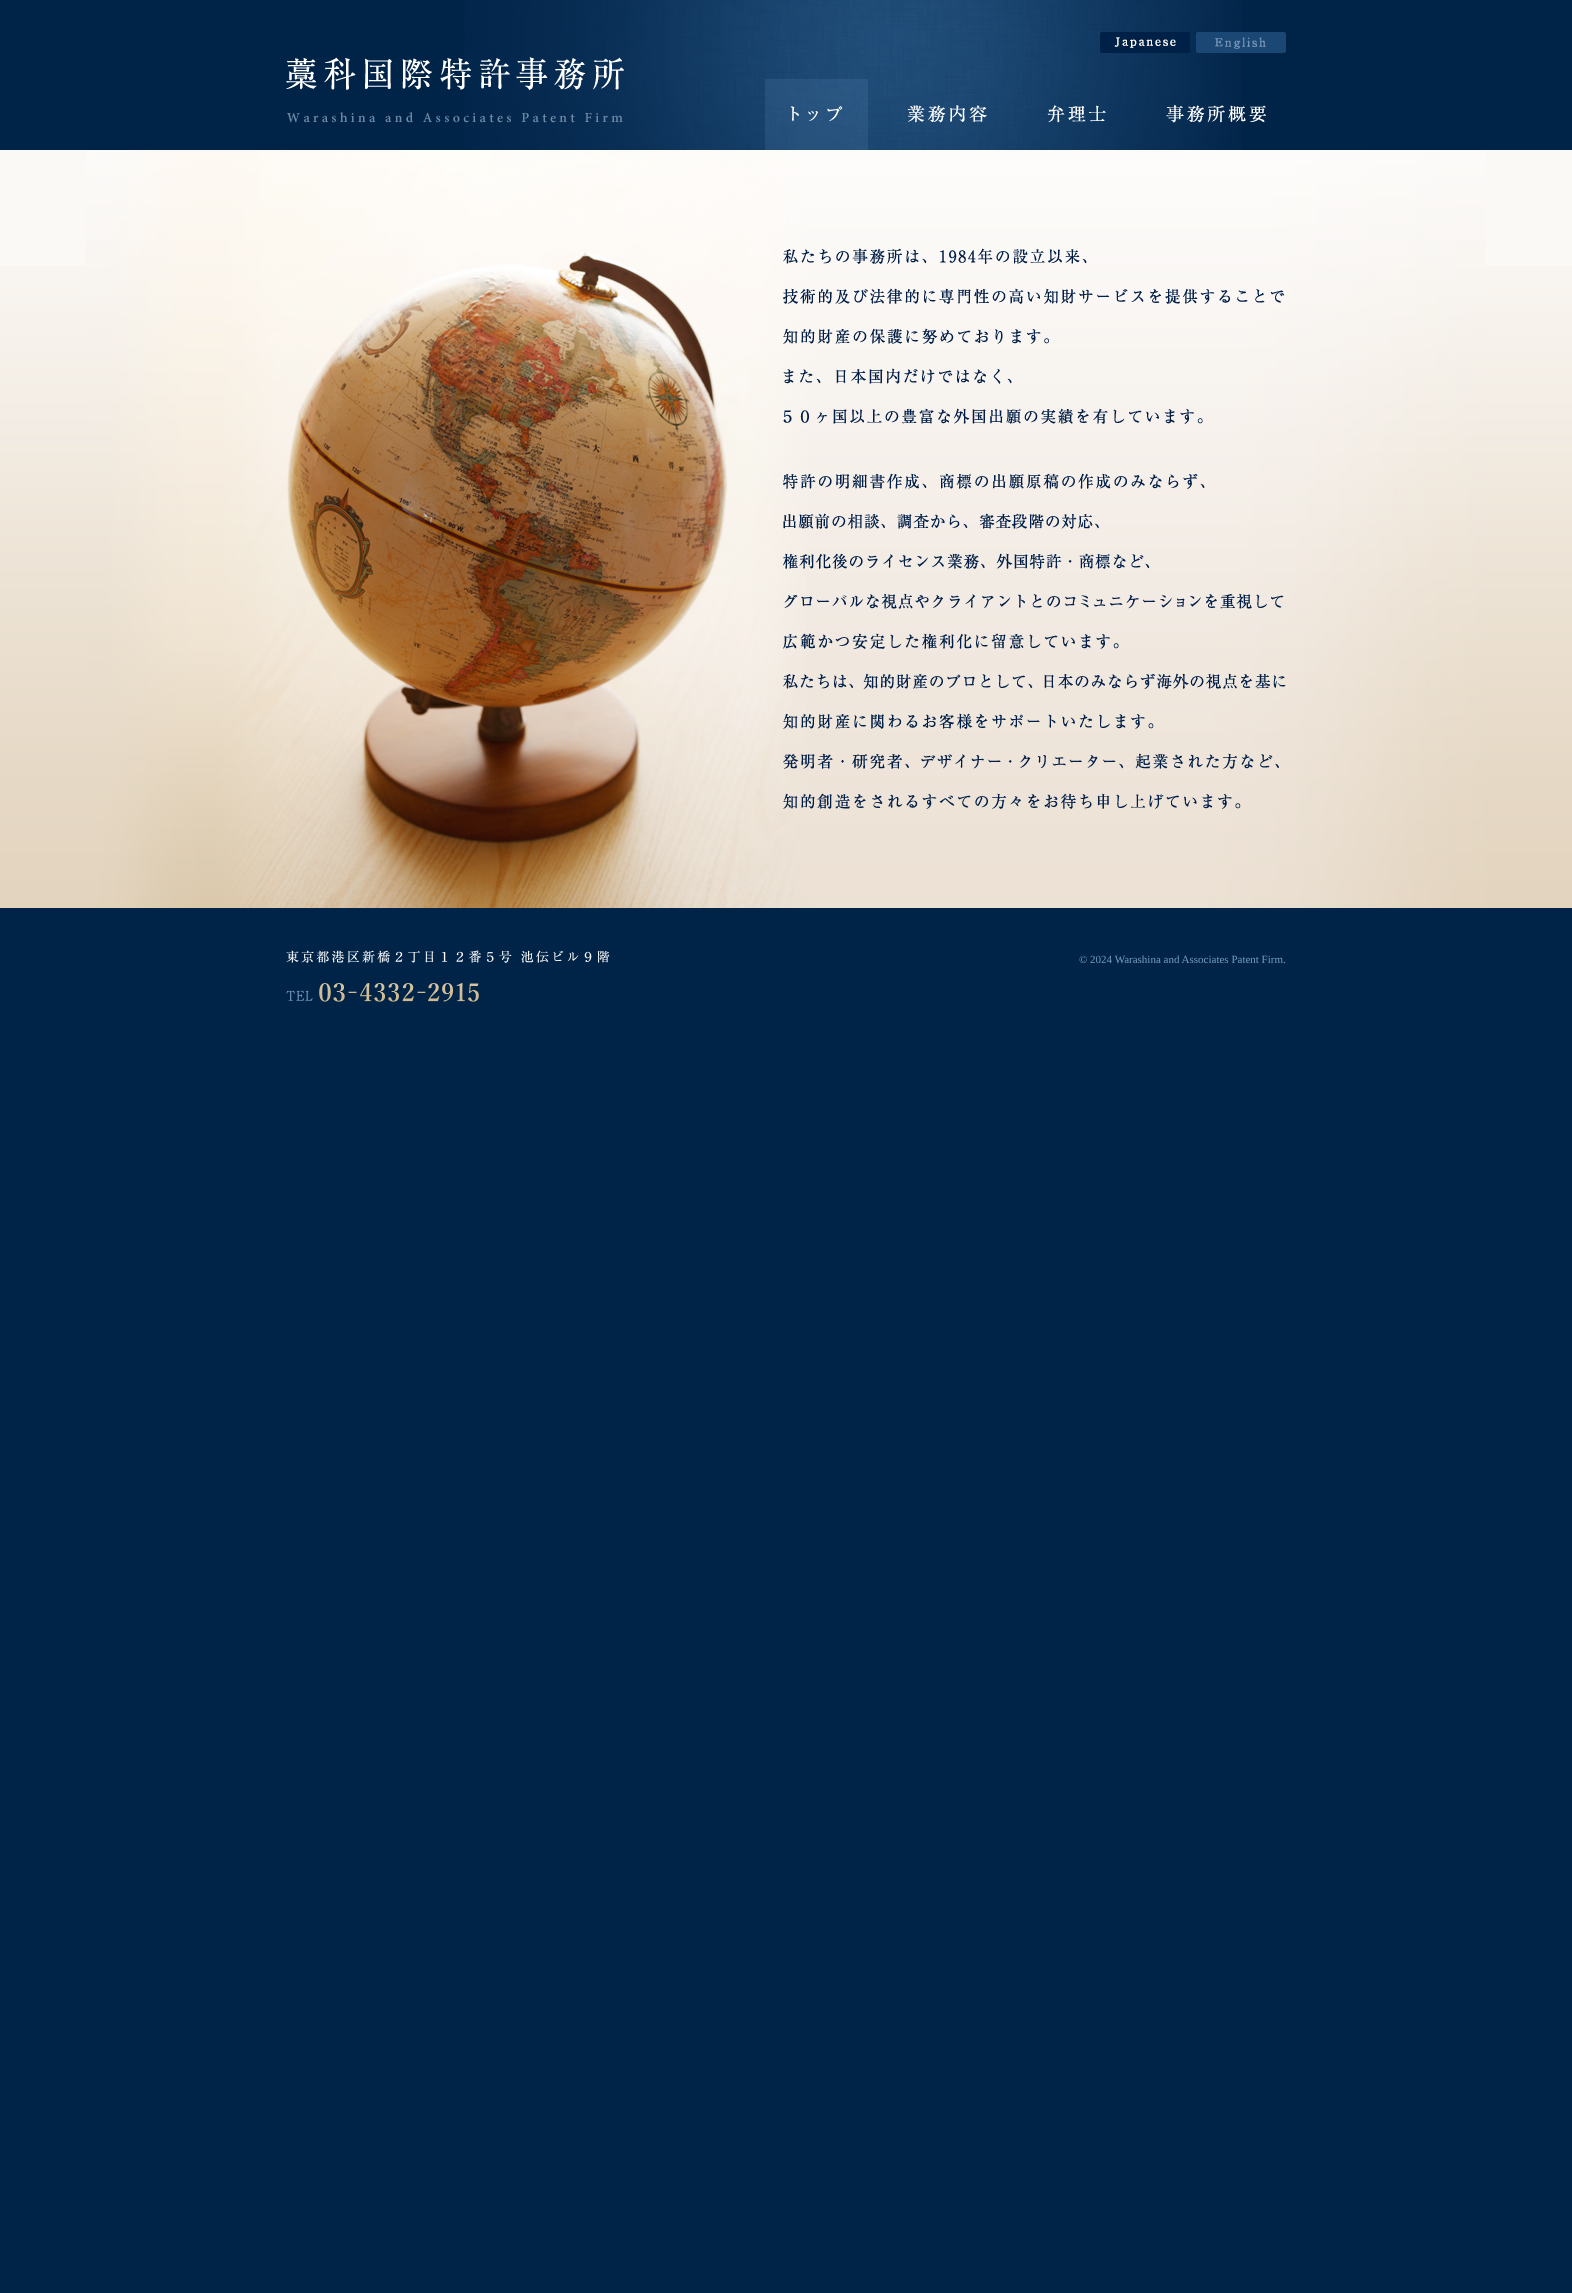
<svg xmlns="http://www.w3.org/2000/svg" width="1572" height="2293">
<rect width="100%" height="100%" fill="#002348"/>
<rect y="150" width="1572" height="116" fill="#fbf9f5"/>
<image x="464" y="0" width="778" height="150" href="media/1.png"/>
<image x="286" y="57" width="338" height="33" href="media/2.png"/>
<image x="287" y="112" width="336" height="11" href="media/3.png"/>
<image x="1100" y="32" width="90" height="21" href="media/4.png"/>
<image x="1196" y="32" width="90" height="21" href="media/5.png"/>
<image x="765" y="79" width="103" height="71" href="media/6.png"/>
<image x="907" y="105" width="80" height="18" href="media/7.png"/>
<image x="1047" y="105" width="59" height="18" href="media/8.png"/>
<image x="1166" y="105" width="100" height="18" href="media/9.png"/>
<image x="0" y="266" width="1572" height="642" href="media/10.png"/>
<image x="86" y="150" width="1400" height="758" href="media/11.png"/>
<image x="782" y="248" width="504" height="561" href="media/12.png"/>
<image x="286" y="950" width="324" height="13" href="media/13.png"/>
<image x="286" y="983" width="193" height="19" href="media/14.png"/>
<text x="1079" y="963" style="font-family:Liberation Serif;font-size:11px;fill:#7798b9">© 2024 Warashina and Associates Patent Firm.</text>
</svg>
